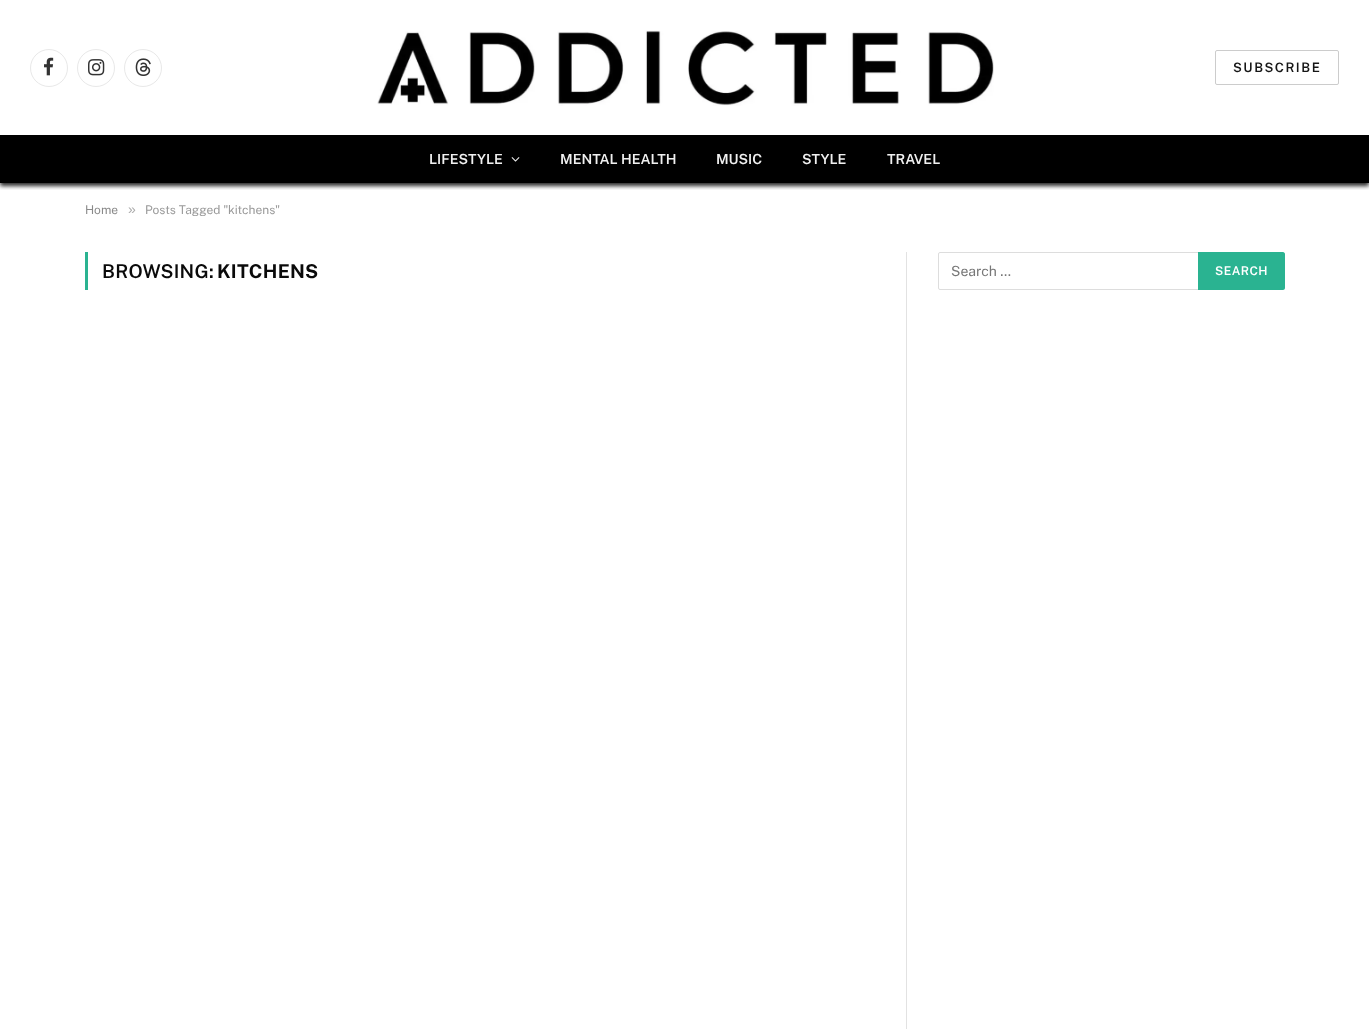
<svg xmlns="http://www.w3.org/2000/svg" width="1369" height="1029">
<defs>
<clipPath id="clip1"><rect x="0" y="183" width="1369" height="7"/></clipPath>
</defs>
<rect width="100%" height="100%" fill="#fff"/>
<g clip-path="url(#clip1)">
<rect y="3" width="1369" height="183" fill="#282828" filter="blur(2px)"/>
</g>
<circle cx="49" cy="68" r="18.5" fill="none" stroke="#e8e8e8"/>
<image x="44" y="57" width="10" height="19" href="media/1.png"/>
<circle cx="96" cy="68" r="18.5" fill="none" stroke="#e8e8e8"/>
<image x="88" y="59" width="17" height="17" href="media/2.png"/>
<circle cx="143" cy="68" r="18.5" fill="none" stroke="#e8e8e8"/>
<image x="135" y="58" width="16" height="18" href="media/3.png"/>
<image x="377" y="30" width="617" height="76" href="media/4.png"/>
<rect x="1215.5" y="50.5" width="123" height="34" rx="1.5" fill="none" stroke="#ccc"/>
<text x="1233" y="72" style="font-family:Public Sans;font-size:13px;font-weight:600;letter-spacing:1.5px;fill:#161616">SUBSCRIBE</text>
<rect y="135" width="1369" height="48" fill="#000"/>
<text x="429" y="164" style="font-family:Public Sans;font-size:14px;font-weight:600;fill:#f0f0f0">LIFESTYLE</text>
<image x="511" y="157" width="9" height="5" href="media/5.png"/>
<text x="560" y="164" style="font-family:Public Sans;font-size:14px;font-weight:600;fill:#f0f0f0">MENTAL HEALTH</text>
<text x="716" y="164" style="font-family:Public Sans;font-size:14px;font-weight:600;fill:#f0f0f0">MUSIC</text>
<text x="802" y="164" style="font-family:Public Sans;font-size:14px;font-weight:600;fill:#f0f0f0">STYLE</text>
<text x="887" y="164" style="font-family:Public Sans;font-size:14px;font-weight:600;fill:#f0f0f0">TRAVEL</text>
<text x="85" y="214" style="font-family:Public Sans;font-size:12px;fill:#8a8a8a">Home</text>
<text x="128" y="214" style="font-family:Liberation Sans;font-size:14px;fill:#adadad">»</text>
<text x="145" y="214" style="font-family:Public Sans;font-size:12px;fill:#999">Posts Tagged "kitchens"</text>
<rect x="85" y="252" width="3" height="38" fill="#2ab391"/>
<text x="102" y="278" style="font-family:Public Sans;font-size:19px;font-weight:600;letter-spacing:0.25px;fill:#0a0a0a">BROWSING:</text>
<text x="217" y="278" style="font-family:Public Sans;font-size:19px;font-weight:bold;letter-spacing:0.25px;fill:#0a0a0a">KITCHENS</text>
<rect x="906" y="252" width="1" height="777" fill="#e2e2e2"/>
<rect x="938.5" y="252.5" width="261" height="37" rx="1.5" fill="none" stroke="#ddd"/>
<text x="951" y="276" style="font-family:Public Sans;font-size:14px;fill:#777">Search …</text>
<path d="M1198 252h85c1 0 2 1 2 2v34c0 1-1 2-2 2h-85z" fill="#2ab391"/>
<text x="1215" y="275" style="font-family:Public Sans;font-size:12px;font-weight:600;letter-spacing:0.5px;fill:#fff">SEARCH</text>
</svg>
